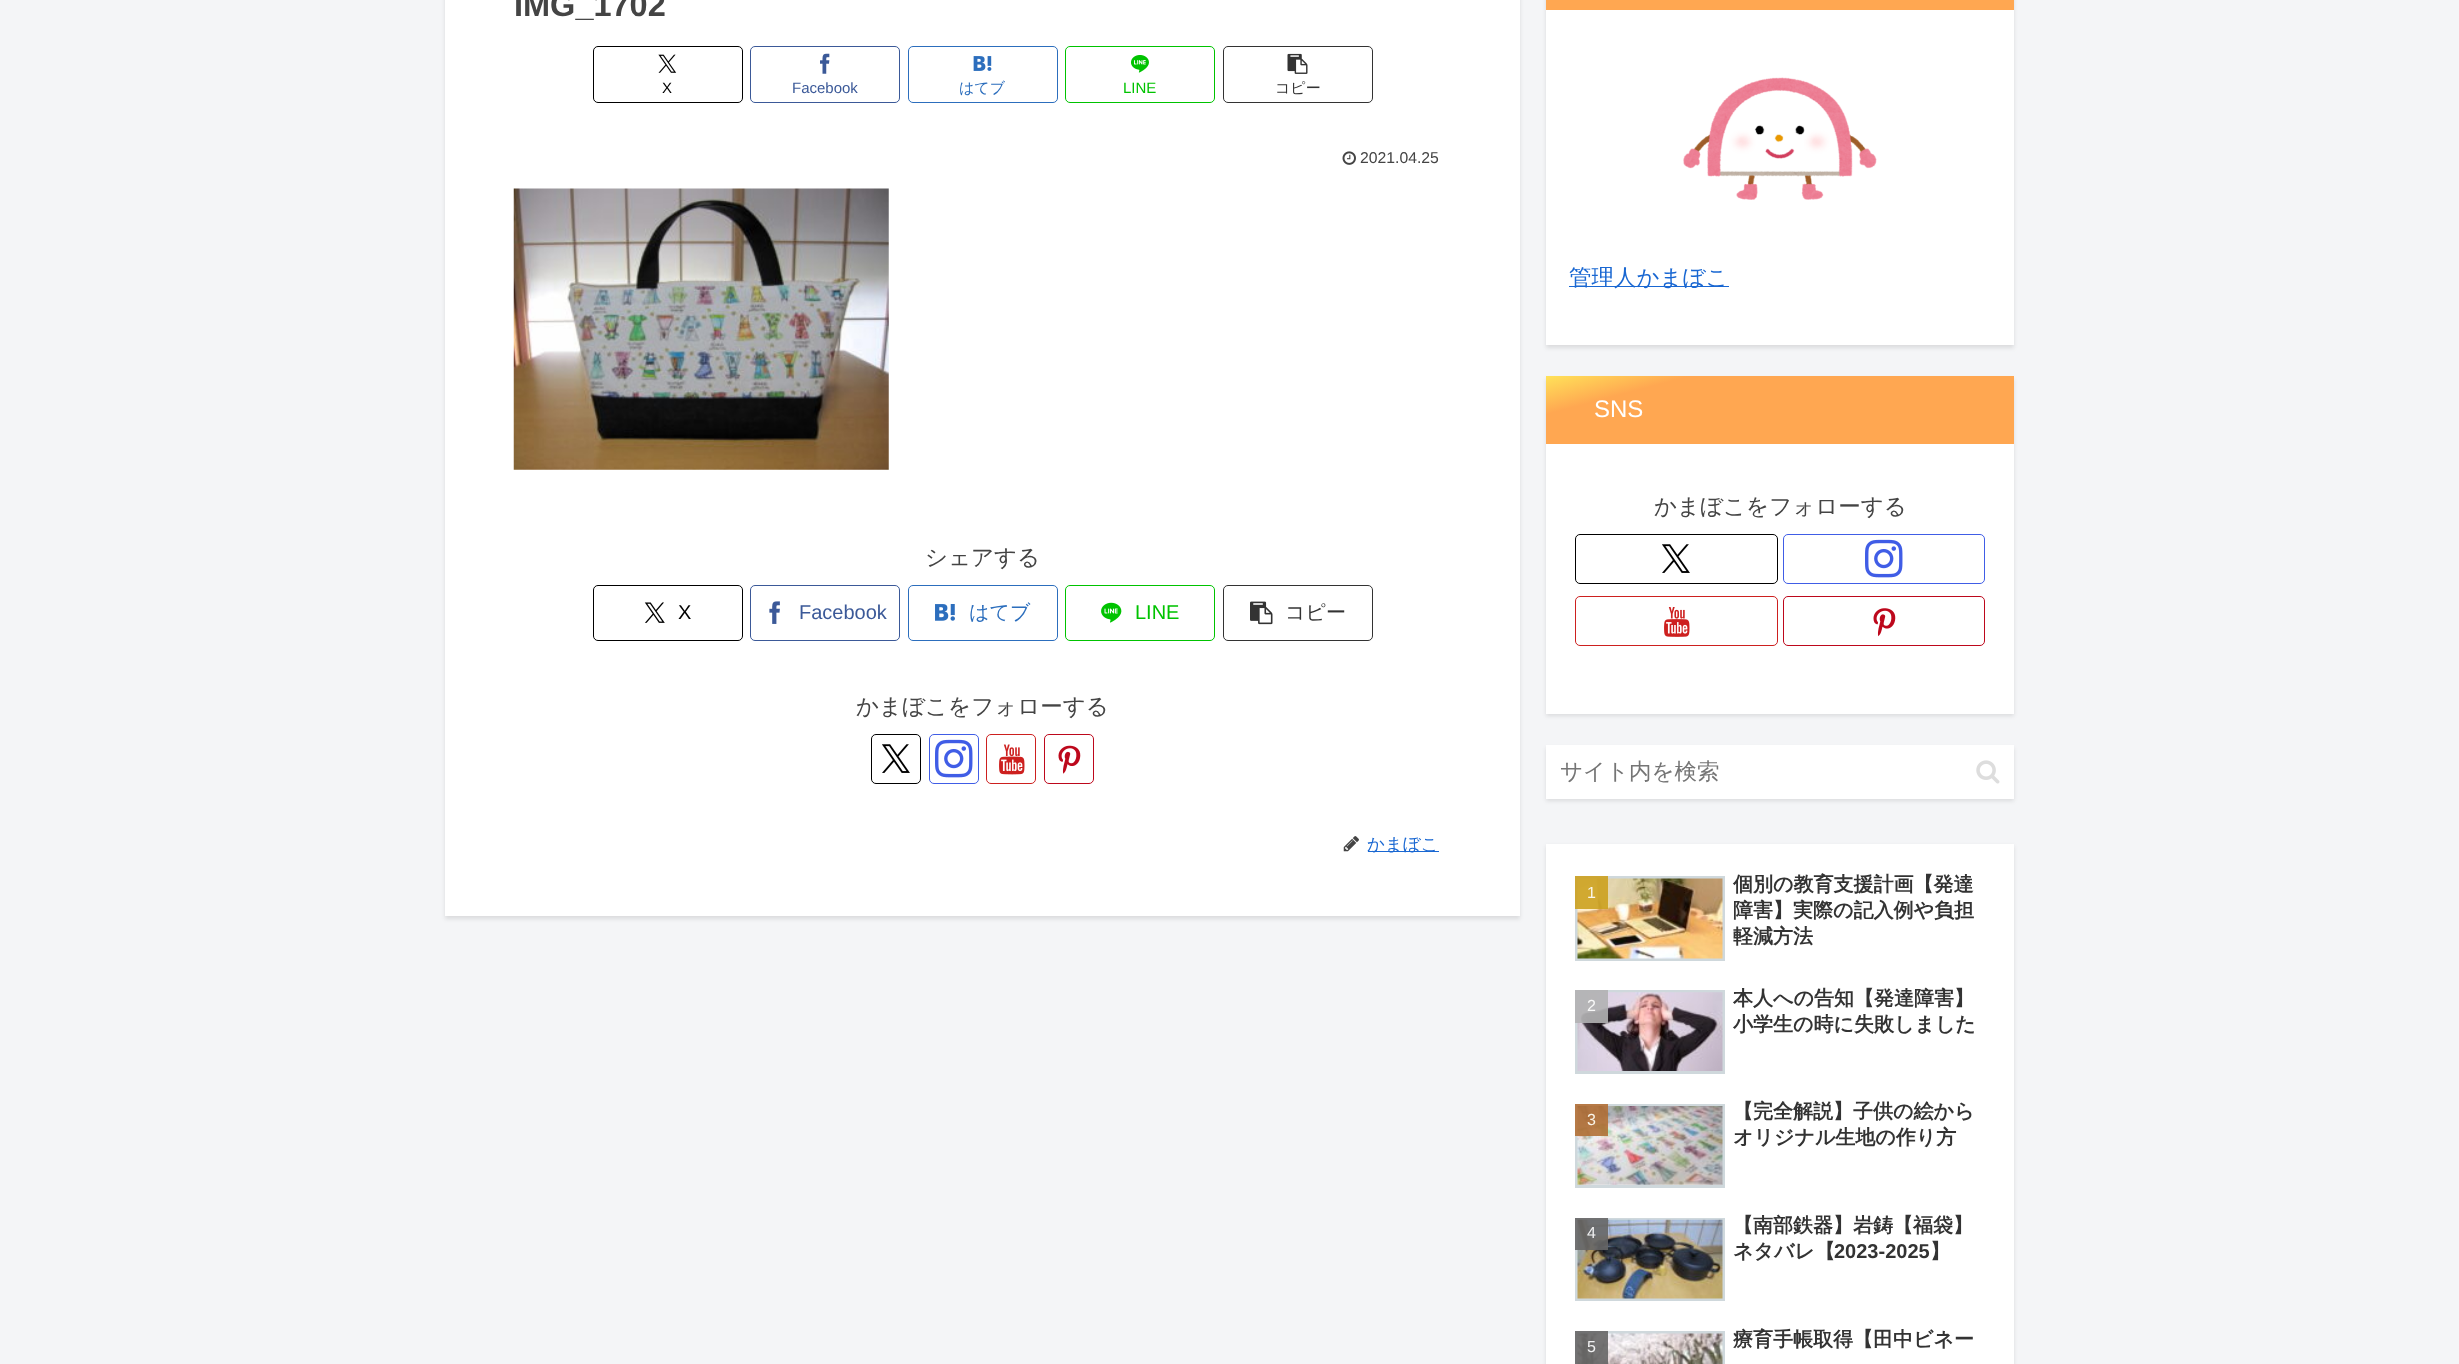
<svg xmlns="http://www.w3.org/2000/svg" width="2459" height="1364">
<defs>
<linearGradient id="g1" gradientUnits="userSpaceOnUse" x1="1756" y1="-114" x2="1804" y2="66"><stop offset="0" stop-color="#ffe259"/><stop offset="0.2" stop-color="#ffa751"/></linearGradient>
<linearGradient id="g2" gradientUnits="userSpaceOnUse" x1="1756" y1="320" x2="1804" y2="500"><stop offset="0" stop-color="#ffe259"/><stop offset="0.2" stop-color="#ffa751"/></linearGradient>
</defs>
<rect width="100%" height="100%" fill="#f4f5f7"/>
<rect x="445" y="-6" width="1075" height="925" fill="#0000001a" filter="blur(2px)"/>
<rect x="445" width="1075" height="916" fill="#fff"/>
<text x="514" y="16" style="font-family:Liberation Sans;font-size:32.5px;font-weight:bold;fill:#444">IMG_1702</text>
<rect x="593.5" y="46.5" width="149" height="56" rx="4.5" fill="none" stroke="#000"/>
<image x="658" y="54" width="19" height="19" href="media/1.png"/>
<text x="662" y="93" style="font-family:Liberation Sans;font-size:15px;fill:#000">X</text>
<rect x="750.5" y="46.5" width="149" height="56" rx="4.5" fill="none" stroke="#3b5998"/>
<image x="820" y="53" width="10" height="21" href="media/2.png"/>
<text x="792" y="93" style="font-family:Liberation Sans;font-size:15px;fill:#3b5998">Facebook</text>
<rect x="908.5" y="46.5" width="149" height="56" rx="4.5" fill="none" stroke="#2c6ebd"/>
<image x="973" y="56" width="19" height="15" href="media/3.png"/>
<text x="959" y="93" style="font-family:WenQuanYi Zen Hei;font-size:15px;font-weight:500;fill:#2c6ebd">はてブ</text>
<rect x="1065.5" y="46.5" width="149" height="56" rx="4.5" fill="none" stroke="#00c300"/>
<image x="1131" y="55" width="18" height="18" href="media/4.png"/>
<text x="1123" y="93" style="font-family:Liberation Sans;font-size:15px;fill:#00c300">LINE</text>
<rect x="1223.5" y="46.5" width="149" height="56" rx="4.5" fill="none" stroke="#333"/>
<image x="1287" y="53" width="21" height="21" href="media/5.png"/>
<text x="1275" y="93" style="font-family:WenQuanYi Zen Hei;font-size:15px;font-weight:500;fill:#333">コピー</text>
<image x="1342" y="151" width="14" height="14" href="media/6.png"/>
<text x="1360" y="163" style="font-family:Liberation Sans;font-size:15.75px;fill:#444">2021.04.25</text>
<image x="513" y="188" width="376" height="282" href="media/7.png"/>
<text x="925" y="565" style="font-family:WenQuanYi Zen Hei;font-size:22.5px;font-weight:500;fill:#444">シェアする</text>
<rect x="593.5" y="585.5" width="149" height="55" rx="4.5" fill="none" stroke="#000"/>
<image x="644" y="602" width="21" height="21" href="media/8.png"/>
<text x="678" y="619" style="font-family:Liberation Sans;font-size:20px;fill:#000">X</text>
<rect x="750.5" y="585.5" width="149" height="55" rx="4.5" fill="none" stroke="#3b5998"/>
<image x="769" y="601" width="11" height="23" href="media/9.png"/>
<text x="799" y="619" style="font-family:Liberation Sans;font-size:20px;fill:#3b5998">Facebook</text>
<rect x="908.5" y="585.5" width="149" height="55" rx="4.5" fill="none" stroke="#2c6ebd"/>
<image x="935" y="604" width="20" height="17" href="media/10.png"/>
<text x="969" y="619" style="font-family:WenQuanYi Zen Hei;font-size:20px;font-weight:500;fill:#2c6ebd">はてブ</text>
<rect x="1065.5" y="585.5" width="149" height="55" rx="4.5" fill="none" stroke="#00c300"/>
<image x="1101" y="602" width="21" height="21" href="media/11.png"/>
<text x="1135" y="619" style="font-family:Liberation Sans;font-size:20px;fill:#00c300">LINE</text>
<rect x="1223.5" y="585.5" width="149" height="55" rx="4.5" fill="none" stroke="#333"/>
<image x="1250" y="601" width="23" height="24" href="media/12.png"/>
<text x="1285" y="619" style="font-family:WenQuanYi Zen Hei;font-size:20px;font-weight:500;fill:#333">コピー</text>
<text x="856" y="714" style="font-family:WenQuanYi Zen Hei;font-size:22.5px;font-weight:500;fill:#444">かまぼこをフォローする</text>
<rect x="871.5" y="734.5" width="49" height="49" rx="4.5" fill="none" stroke="#000"/>
<image x="882" y="744" width="28" height="29" href="media/13.png"/>
<rect x="929.5" y="734.5" width="49" height="49" rx="4.5" fill="none" stroke="#405de6"/>
<image x="935" y="739" width="38" height="39" href="media/14.png"/>
<rect x="986.5" y="734.5" width="49" height="49" rx="4.5" fill="none" stroke="#cd201f"/>
<image x="999" y="744" width="26" height="31" href="media/15.png"/>
<rect x="1044.5" y="734.5" width="49" height="49" rx="4.5" fill="none" stroke="#bd081c"/>
<image x="1058" y="745" width="23" height="29" href="media/16.png"/>
<image x="1343" y="836" width="16" height="16" href="media/17.png"/>
<rect x="1368" y="851" width="71" height="1" fill="#1967d2"/>
<text x="1367" y="850" style="font-family:WenQuanYi Zen Hei;font-size:17.5px;font-weight:500;fill:#1967d2">かまぼこ</text>
<rect x="1546" y="-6" width="468" height="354" fill="#0000001a" filter="blur(2px)"/>
<rect x="1546" y="10" width="468" height="335" fill="#fff"/>
<rect x="1546" width="468" height="10" fill="url(#g1)"/>
<image x="1683" y="77" width="194" height="123" href="media/18.png"/>
<rect x="1569" y="286" width="160" height="1" fill="#1967d2"/>
<text x="1569" y="285" style="font-family:WenQuanYi Zen Hei;font-size:22.5px;font-weight:500;fill:#1967d2">管理人かまぼこ</text>
<rect x="1546" y="379" width="468" height="337" fill="#0000001a" filter="blur(2px)"/>
<rect x="1546" y="444" width="468" height="270" fill="#fff"/>
<rect x="1546" y="376" width="468" height="68" fill="url(#g2)"/>
<text x="1594" y="417" style="font-family:Liberation Sans;font-size:24px;fill:#fff">SNS</text>
<text x="1654" y="514" style="font-family:WenQuanYi Zen Hei;font-size:22.5px;font-weight:500;fill:#444">かまぼこをフォローする</text>
<rect x="1575.5" y="534.5" width="202" height="49" rx="4.5" fill="none" stroke="#000"/>
<image x="1662" y="544" width="28" height="29" href="media/13.png"/>
<rect x="1783.5" y="534.5" width="201" height="49" rx="4.5" fill="none" stroke="#405de6"/>
<image x="1865" y="539" width="38" height="39" href="media/14.png"/>
<rect x="1575.5" y="596.5" width="202" height="49" rx="4.5" fill="none" stroke="#cd201f"/>
<image x="1664" y="607" width="26" height="30" href="media/19.png"/>
<rect x="1783.5" y="596.5" width="201" height="49" rx="4.5" fill="none" stroke="#bd081c"/>
<image x="1873" y="608" width="23" height="29" href="media/20.png"/>
<rect x="1546" y="748" width="468" height="53" fill="#0000001a" filter="blur(2px)"/>
<rect x="1546" y="745" width="468" height="54" fill="#fff"/>
<text x="1560" y="779" style="font-family:WenQuanYi Zen Hei;font-size:22.5px;font-weight:500;fill:#757575">サイト内を検索</text>
<image x="1976" y="760" width="24" height="24" href="media/21.png"/>
<rect x="1546" y="846" width="468" height="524" fill="#0000001a" filter="blur(2px)"/>
<rect x="1546" y="844" width="468" height="520" fill="#fff"/>
<rect x="1576.5" y="877.5" width="147" height="82" fill="none" stroke="#cfd8dc" stroke-width="3"/>
<image x="1577" y="878" width="146" height="81" href="media/22.png"/>
<rect x="1575" y="876" width="33" height="33" fill="#cca11fe6"/>
<text x="1587" y="898" style="font-family:Liberation Sans;font-size:16px;fill:#faf6ea">1</text>
<text x="1733" y="891" style="font-family:WenQuanYi Zen Hei;font-size:20px;font-weight:bold;fill:#333">個別の教育支援計画【発達</text>
<text x="1733" y="917" style="font-family:WenQuanYi Zen Hei;font-size:20px;font-weight:bold;fill:#333">障害】実際の記入例や負担</text>
<text x="1733" y="943" style="font-family:WenQuanYi Zen Hei;font-size:20px;font-weight:bold;fill:#333">軽減方法</text>
<rect x="1576.5" y="991.5" width="147" height="81" fill="none" stroke="#cfd8dc" stroke-width="3"/>
<image x="1577" y="992" width="146" height="79" href="media/23.png"/>
<rect x="1575" y="990" width="33" height="33" fill="#b1b1b3e6"/>
<text x="1587" y="1011" style="font-family:Liberation Sans;font-size:16px;fill:#f8f8f8">2</text>
<text x="1733" y="1005" style="font-family:WenQuanYi Zen Hei;font-size:20px;font-weight:bold;fill:#333">本人への告知【発達障害】</text>
<text x="1733" y="1031" style="font-family:WenQuanYi Zen Hei;font-size:20px;font-weight:bold;fill:#333">小学生の時に失敗しました</text>
<rect x="1576.5" y="1105.5" width="147" height="81" fill="none" stroke="#cfd8dc" stroke-width="3"/>
<image x="1577" y="1106" width="146" height="79" href="media/24.png"/>
<rect x="1575" y="1104" width="33" height="32" fill="#b37036e6"/>
<text x="1587" y="1125" style="font-family:Liberation Sans;font-size:16px;fill:#faf6ea">3</text>
<text x="1733" y="1118" style="font-family:WenQuanYi Zen Hei;font-size:20px;font-weight:bold;fill:#333">【完全解説】子供の絵から</text>
<text x="1733" y="1144" style="font-family:WenQuanYi Zen Hei;font-size:20px;font-weight:bold;fill:#333">オリジナル生地の作り方</text>
<rect x="1576.5" y="1219.5" width="147" height="80" fill="none" stroke="#cfd8dc" stroke-width="3"/>
<image x="1577" y="1219" width="146" height="80" href="media/25.png"/>
<rect x="1575" y="1218" width="33" height="32" fill="#666666e6"/>
<text x="1587" y="1238" style="font-family:Liberation Sans;font-size:16px;fill:#f0f0f1">4</text>
<text x="1733" y="1232" style="font-family:WenQuanYi Zen Hei;font-size:20px;font-weight:bold;fill:#333">【南部鉄器】岩鋳【福袋】</text>
<text x="1733" y="1258" style="font-family:WenQuanYi Zen Hei;font-size:20px;font-weight:bold;fill:#333">ネタバレ【</text>
<text x="1834" y="1258" style="font-family:Liberation Sans;font-size:20px;font-weight:bold;fill:#333">2023-2025</text>
<text x="1930" y="1258" style="font-family:WenQuanYi Zen Hei;font-size:20px;font-weight:bold;fill:#333">】</text>
<rect x="1576.5" y="1332.5" width="147" height="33" fill="none" stroke="#cfd8dc" stroke-width="3"/>
<image x="1577" y="1333" width="146" height="31" href="media/26.png"/>
<rect x="1575" y="1331" width="33" height="33" fill="#666666e6"/>
<text x="1587" y="1352" style="font-family:Liberation Sans;font-size:16px;fill:#f0f0f1">5</text>
<text x="1733" y="1346" style="font-family:WenQuanYi Zen Hei;font-size:20px;font-weight:bold;fill:#333">療育手帳取得【田中ビネー</text>
</svg>
